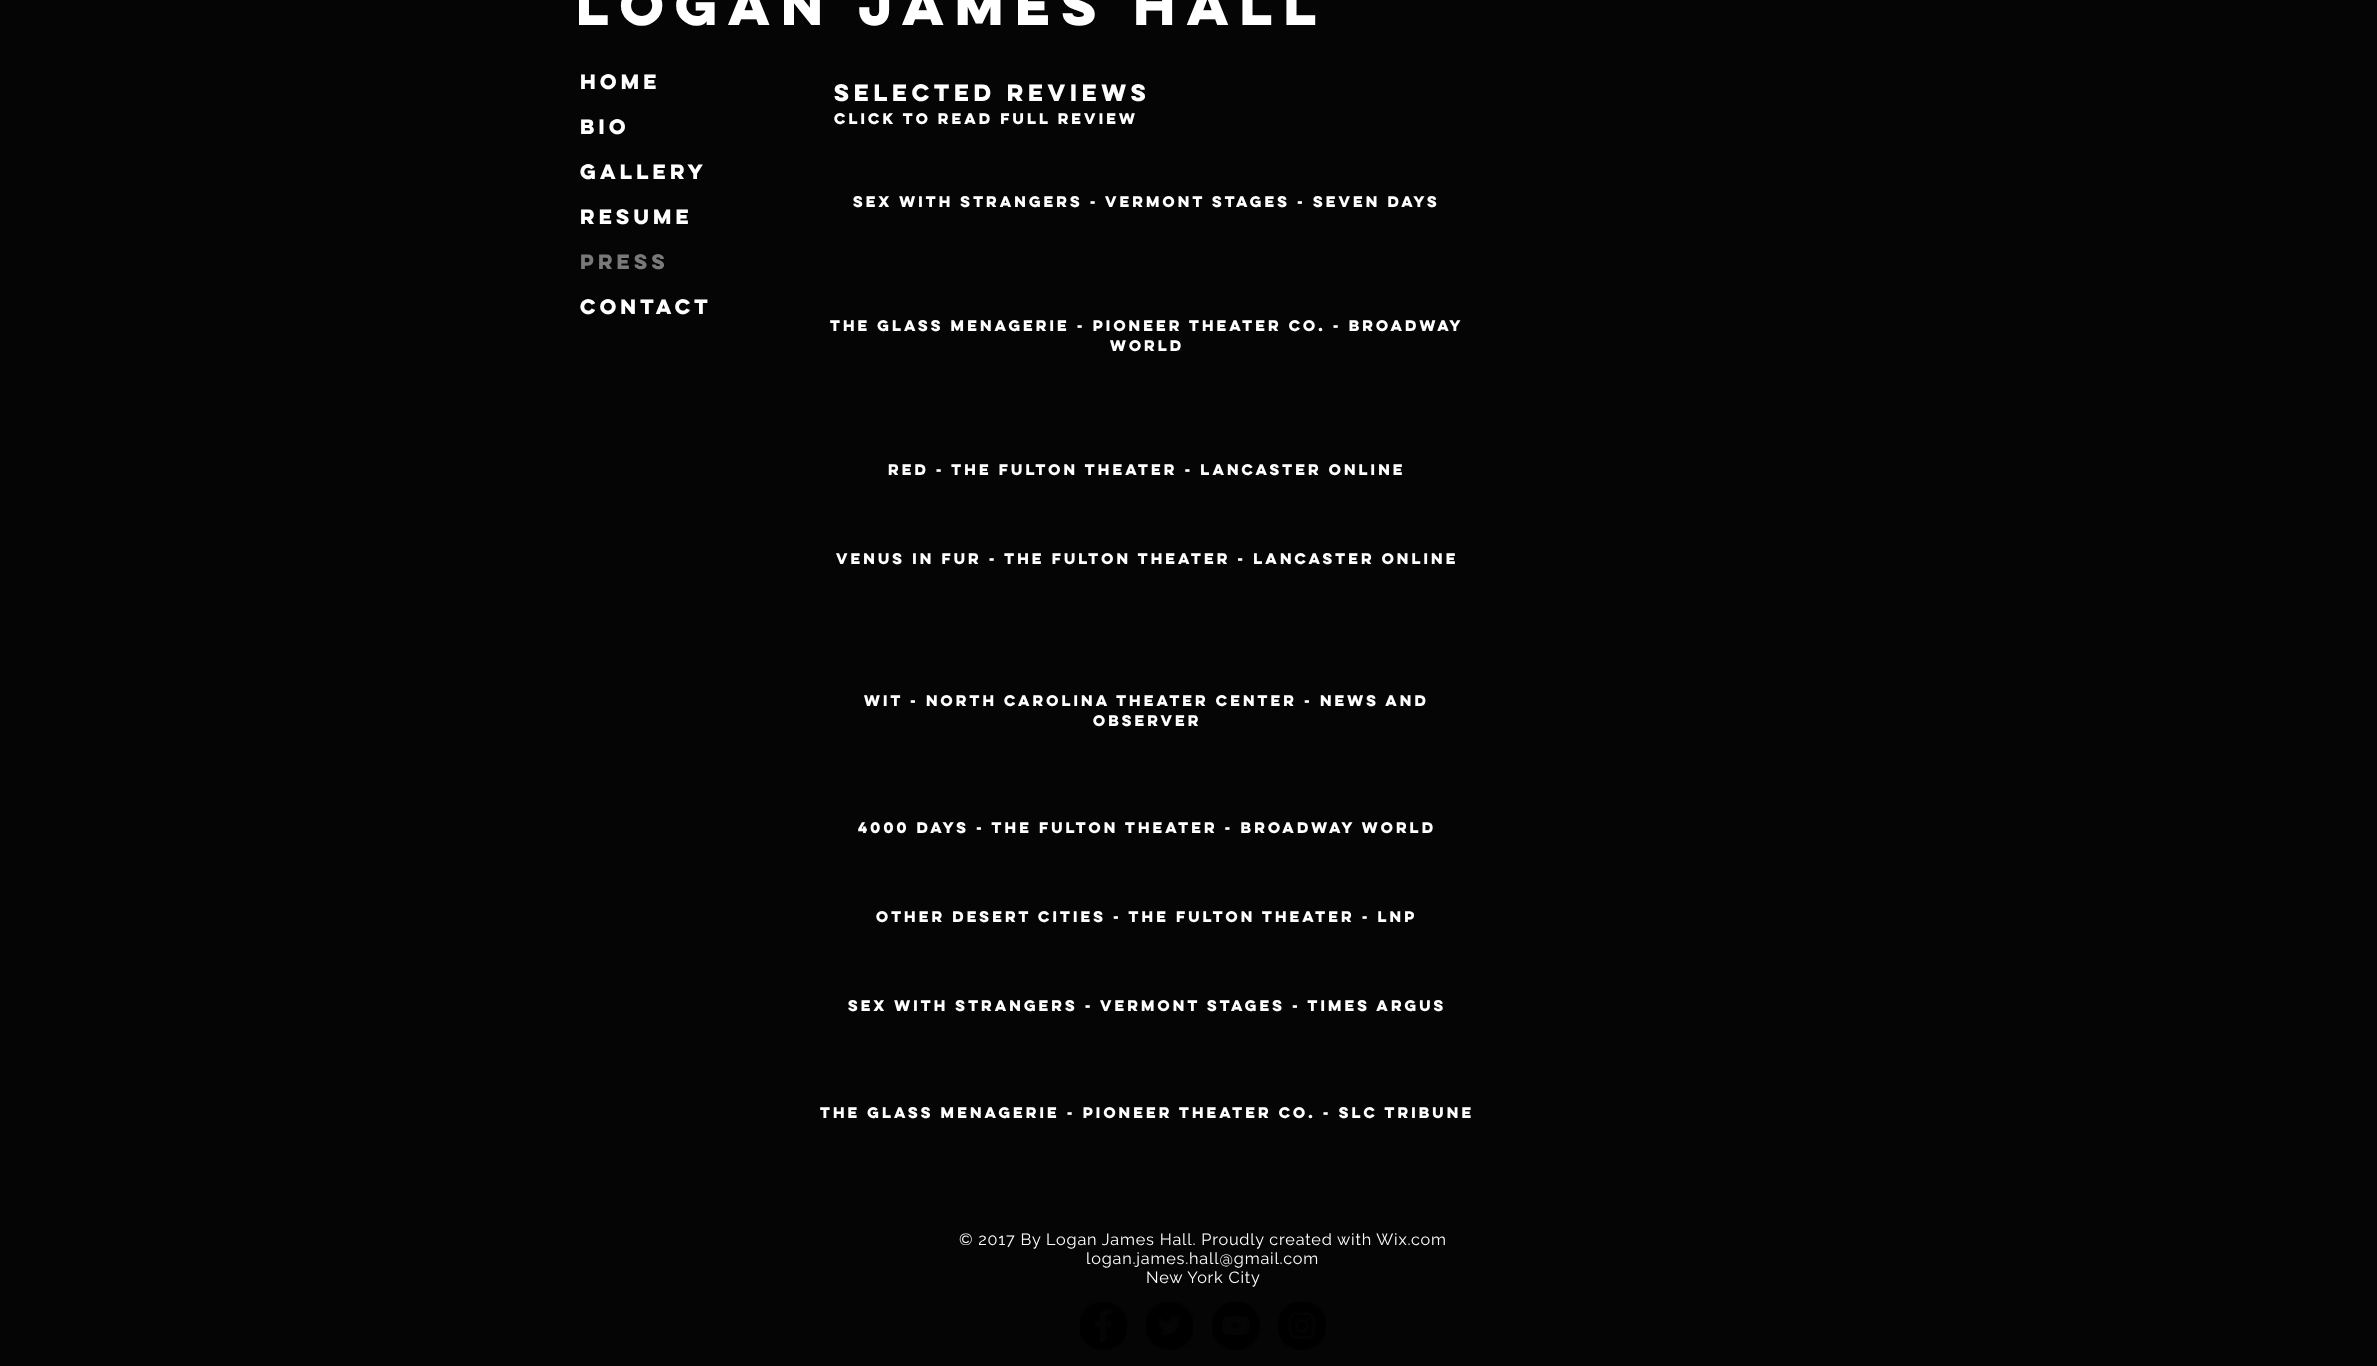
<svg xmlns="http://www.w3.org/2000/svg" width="2377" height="1366">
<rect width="100%" height="100%" fill="#050505"/>
<text x="576" y="25" style="font-family:'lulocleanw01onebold';font-size:50px;font-weight:bold;fill:#fff">Logan James Hall</text>
<text x="580" y="89" style="font-family:'lulocleanw01onebold';font-size:18.75px;font-weight:bold;fill:#fff">HOME</text>
<text x="580" y="134" style="font-family:'lulocleanw01onebold';font-size:18.75px;font-weight:bold;fill:#fff">BIO</text>
<text x="580" y="179" style="font-family:'lulocleanw01onebold';font-size:18.75px;font-weight:bold;fill:#fff">GALLERY</text>
<text x="580" y="224" style="font-family:'lulocleanw01onebold';font-size:18.75px;font-weight:bold;fill:#fff">RESUME</text>
<text x="580" y="269" style="font-family:'lulocleanw01onebold';font-size:18.75px;font-weight:bold;fill:#797979">PRESS</text>
<text x="580" y="314" style="font-family:'lulocleanw01onebold';font-size:18.75px;font-weight:bold;fill:#fff">CONTACT</text>
<text x="834" y="101" style="font-family:'lulocleanw01onebold';font-size:21.25px;font-weight:bold;fill:#fff">Selected Reviews</text>
<text x="834" y="124" style="font-family:'lulocleanw01onebold';font-size:13.75px;font-weight:bold;fill:#fff">click to read full review</text>
<text x="853" y="207" style="font-family:'lulocleanw01onebold';font-size:13.75px;font-weight:bold;fill:#fff">Sex With Strangers - Vermont Stages - Seven Days</text>
<text x="830" y="331" style="font-family:'lulocleanw01onebold';font-size:13.75px;font-weight:bold;fill:#fff">The Glass Menagerie - Pioneer Theater Co. - Broadway</text>
<text x="1110" y="351" style="font-family:'lulocleanw01onebold';font-size:13.75px;font-weight:bold;fill:#fff">World</text>
<text x="888" y="475" style="font-family:'lulocleanw01onebold';font-size:13.75px;font-weight:bold;fill:#fff">RED - The Fulton Theater - Lancaster Online</text>
<text x="836" y="564" style="font-family:'lulocleanw01onebold';font-size:13.75px;font-weight:bold;fill:#fff">Venus In Fur - The Fulton Theater - Lancaster Online</text>
<text x="864" y="706" style="font-family:'lulocleanw01onebold';font-size:13.75px;font-weight:bold;fill:#fff">Wit - North Carolina Theater Center - News and</text>
<text x="1093" y="726" style="font-family:'lulocleanw01onebold';font-size:13.75px;font-weight:bold;fill:#fff">Observer</text>
<text x="858" y="833" style="font-family:'lulocleanw01onebold';font-size:13.75px;font-weight:bold;fill:#fff">4000 Days - The Fulton Theater - Broadway World</text>
<text x="876" y="922" style="font-family:'lulocleanw01onebold';font-size:13.75px;font-weight:bold;fill:#fff">Other Desert Cities - The Fulton Theater - LNP</text>
<text x="848" y="1011" style="font-family:'lulocleanw01onebold';font-size:13.75px;font-weight:bold;fill:#fff">Sex With Strangers - Vermont Stages - Times Argus</text>
<text x="820" y="1118" style="font-family:'lulocleanw01onebold';font-size:13.75px;font-weight:bold;fill:#fff">The Glass Menagerie - Pioneer Theater Co. - SLC Tribune</text>
<text x="959" y="1245" style="font-family:Raleway;font-size:16.25px;letter-spacing:0.8px;fill:#fff">© 2017 By Logan James Hall. Proudly created with Wix.com</text>
<text x="1086" y="1264" style="font-family:Raleway;font-size:16.25px;letter-spacing:0.8px;fill:#fff">logan.james.hall@gmail.com</text>
<text x="1146" y="1283" style="font-family:Raleway;font-size:16.25px;letter-spacing:0.8px;fill:#fff">New York City</text>
<image x="1080" y="1302" width="47" height="48" href="media/1.png"/>
<image x="1146" y="1302" width="47" height="48" href="media/2.png"/>
<image x="1212" y="1302" width="48" height="48" href="media/3.png"/>
<image x="1278" y="1302" width="48" height="48" href="media/4.png"/>
</svg>
